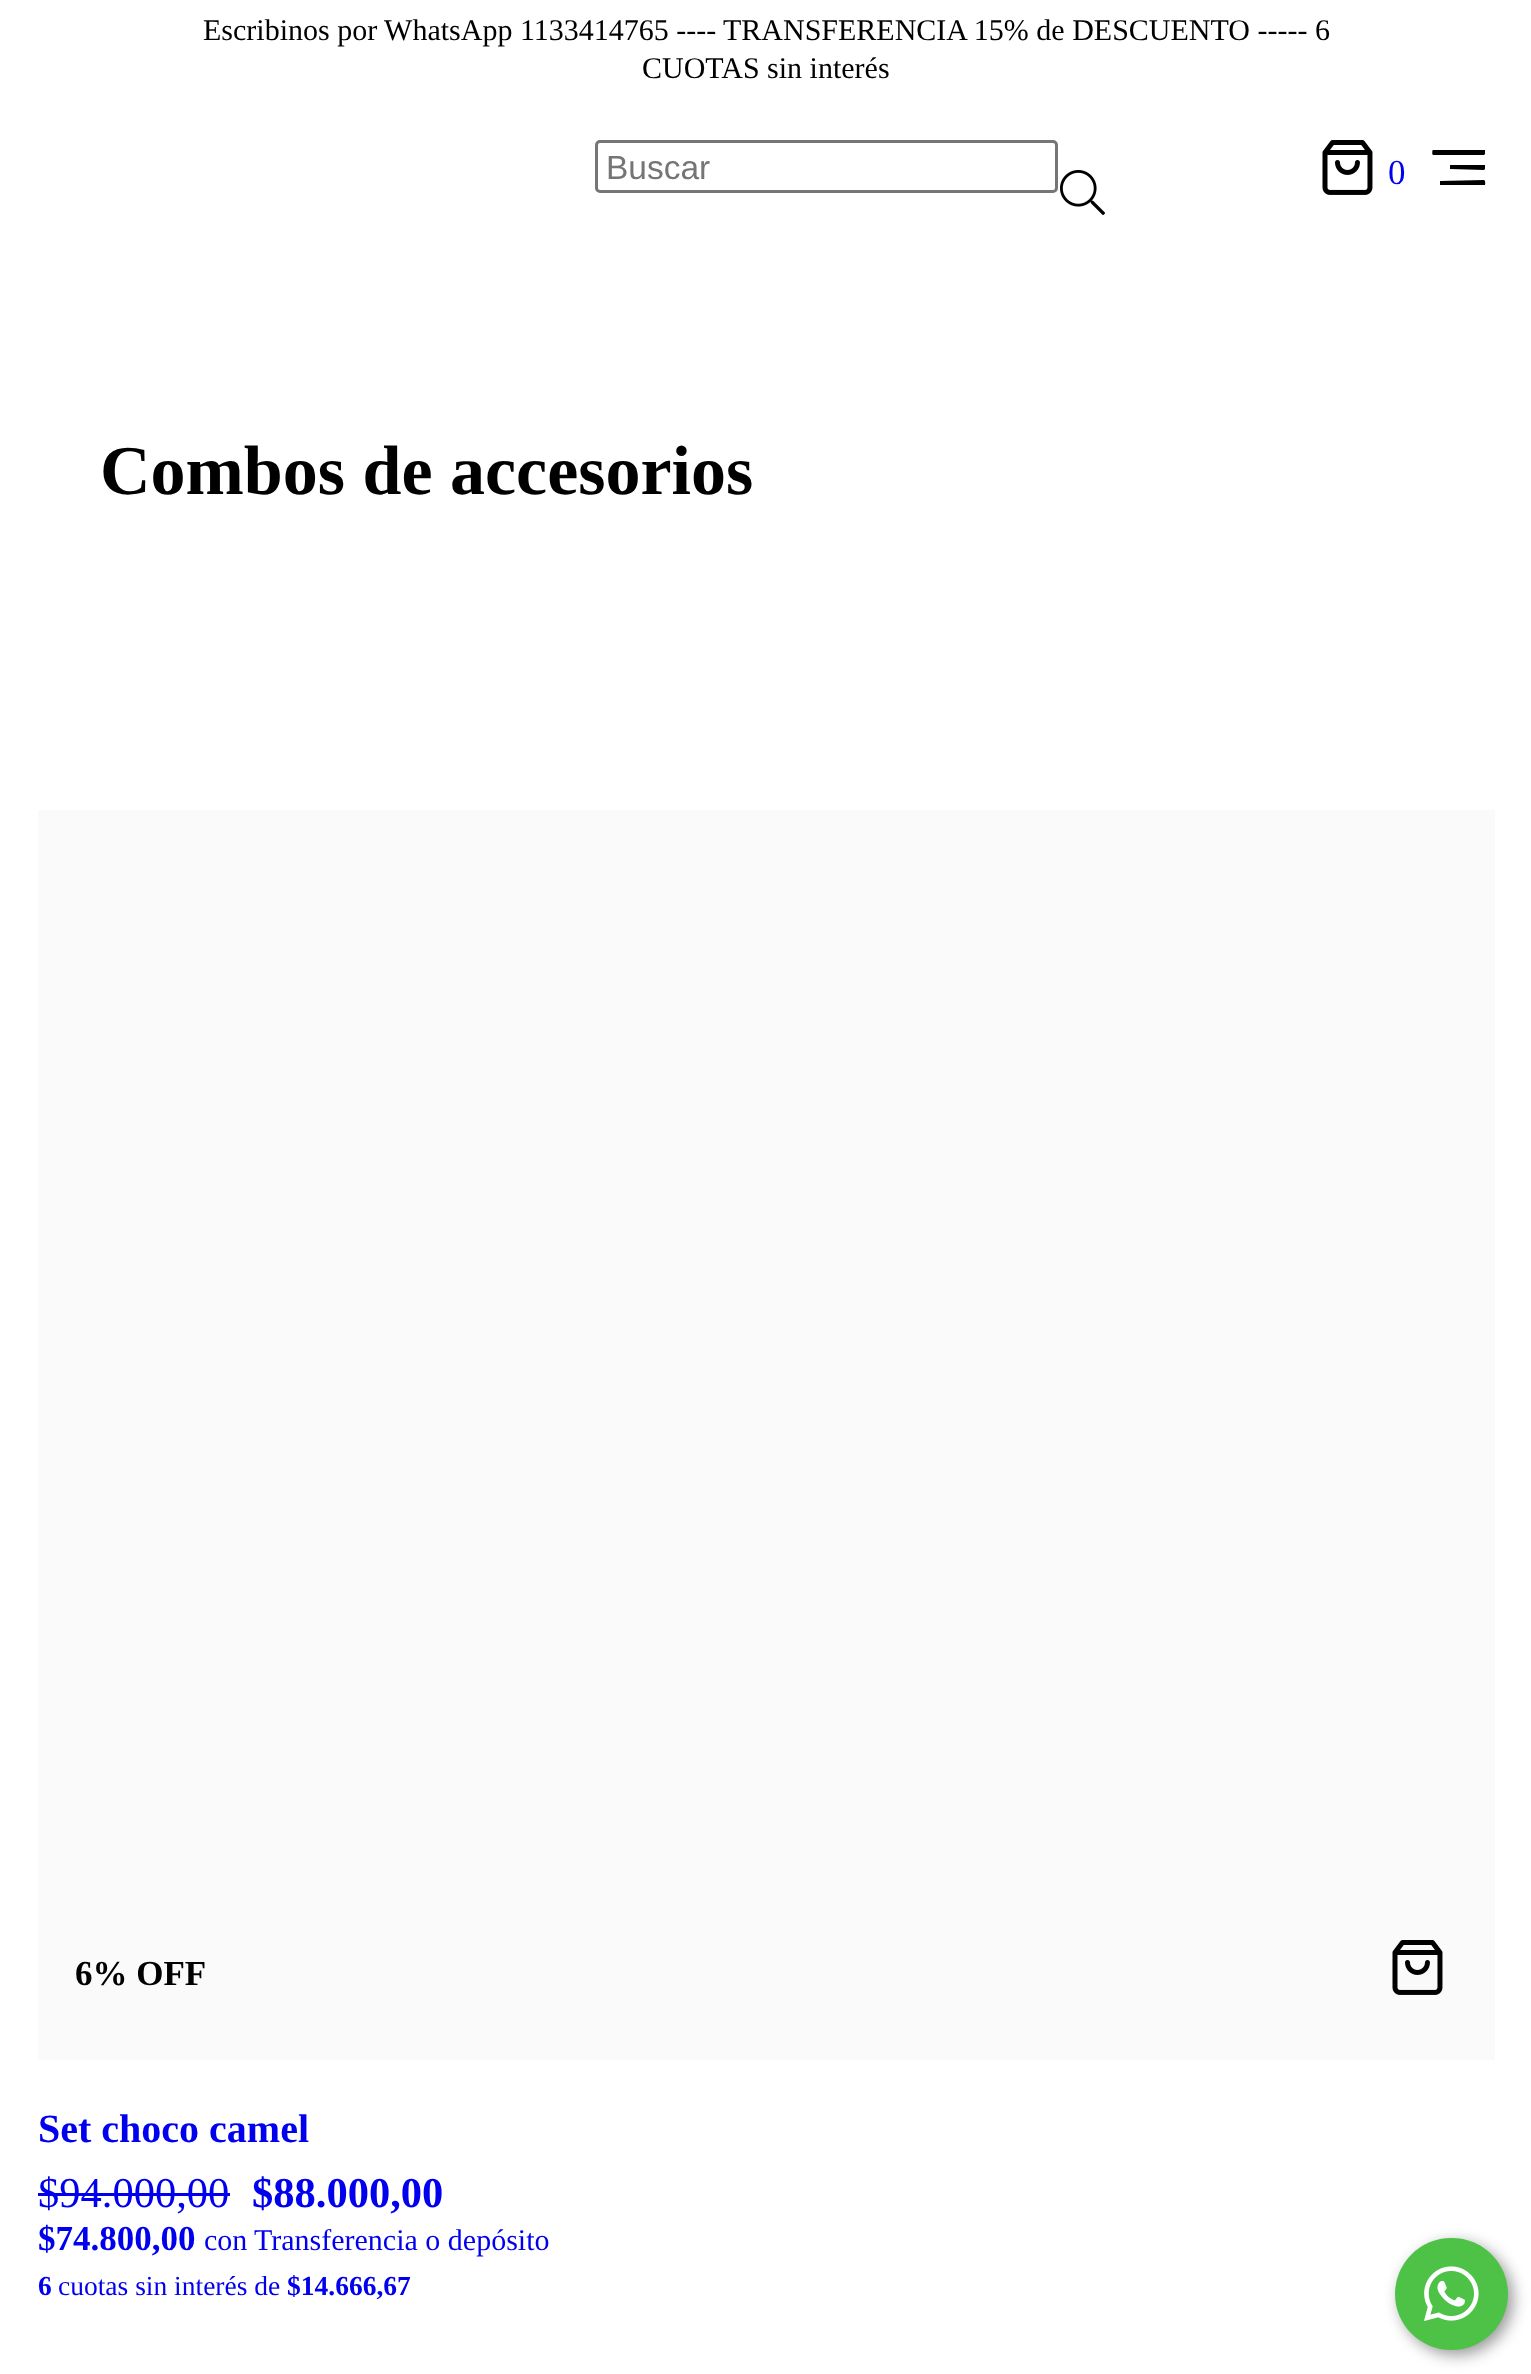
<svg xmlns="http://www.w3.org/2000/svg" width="1531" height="2374">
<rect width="100%" height="100%" fill="#fff"/>
<text x="203" y="40" style="font-family:Liberation Serif;font-size:30px;fill:#000">Escribinos por WhatsApp 1133414765 ----</text>
<text x="723" y="40" style="font-family:Liberation Serif;font-size:30px;fill:#000">TRANSFERENCIA 15% de DESCUENTO ----- 6</text>
<text x="642" y="78" style="font-family:Liberation Serif;font-size:30px;fill:#000">CUOTAS sin interés</text>
<rect x="596.5" y="141.5" width="460" height="50" rx="3.5" fill="none" stroke="#767676" stroke-width="3"/>
<text x="606" y="179" style="font-family:Liberation Sans;font-size:33.5px;fill:#757575">Buscar</text>
<image x="1060" y="170" width="45" height="45" href="media/1.png"/>
<image x="1322" y="140" width="51" height="55" href="media/2.png"/>
<text x="1388" y="184" style="font-family:Liberation Serif;font-size:35px;fill:#00e">0</text>
<path d="M1484 155h-51c-1 0-1-5 0-5h52v4zm0 15l-34-1v-4h35v4zm0 15h-44v-4l44-1c2 1 1 5 1 5z" fill="#000"/>
<text x="100" y="494" style="font-family:Liberation Serif;font-size:70px;font-weight:bold;fill:#000">Combos de accesorios</text>
<rect x="38" y="810" width="1457" height="1250" fill="#fafafa"/>
<text x="75" y="1985" style="font-family:Liberation Serif;font-size:35px;font-weight:bold;fill:#000">6% OFF</text>
<image x="1392" y="1940" width="51" height="55" href="media/3.png"/>
<text x="38" y="2142" style="font-family:Liberation Serif;font-size:40px;font-weight:bold;fill:#00e">Set choco camel</text>
<text x="38" y="2207" style="font-family:Liberation Serif;font-size:42.5px;fill:#00e">$94.000,00</text>
<rect x="38" y="2193" width="192" height="3" fill="#00e"/>
<text x="252" y="2207" style="font-family:Liberation Serif;font-size:42.5px;font-weight:bold;fill:#00e">$88.000,00</text>
<text x="38" y="2250" style="font-family:Liberation Serif;font-size:35px;font-weight:bold;fill:#00e">$74.800,00</text>
<text x="204" y="2250" style="font-family:Liberation Serif;font-size:30px;fill:#00e">con</text>
<text x="254" y="2250" style="font-family:Liberation Serif;font-size:30px;fill:#00e">Transferencia o depósito</text>
<text x="38" y="2295" style="font-family:Liberation Serif;font-size:27.5px;font-weight:bold;fill:#00e">6</text>
<text x="58" y="2295" style="font-family:Liberation Serif;font-size:27.5px;fill:#00e">cuotas sin interés de</text>
<text x="287" y="2295" style="font-family:Liberation Serif;font-size:27.5px;font-weight:bold;fill:#00e">$14.666,67</text>
<rect x="1400" y="2243" width="113" height="112" rx="56" fill="#00000066" filter="blur(7.5px)"/>
<rect x="1395" y="2238" width="113" height="112" rx="56" fill="#4dc247"/>
<image x="1424" y="2266" width="55" height="55" href="media/4.png"/>
</svg>
